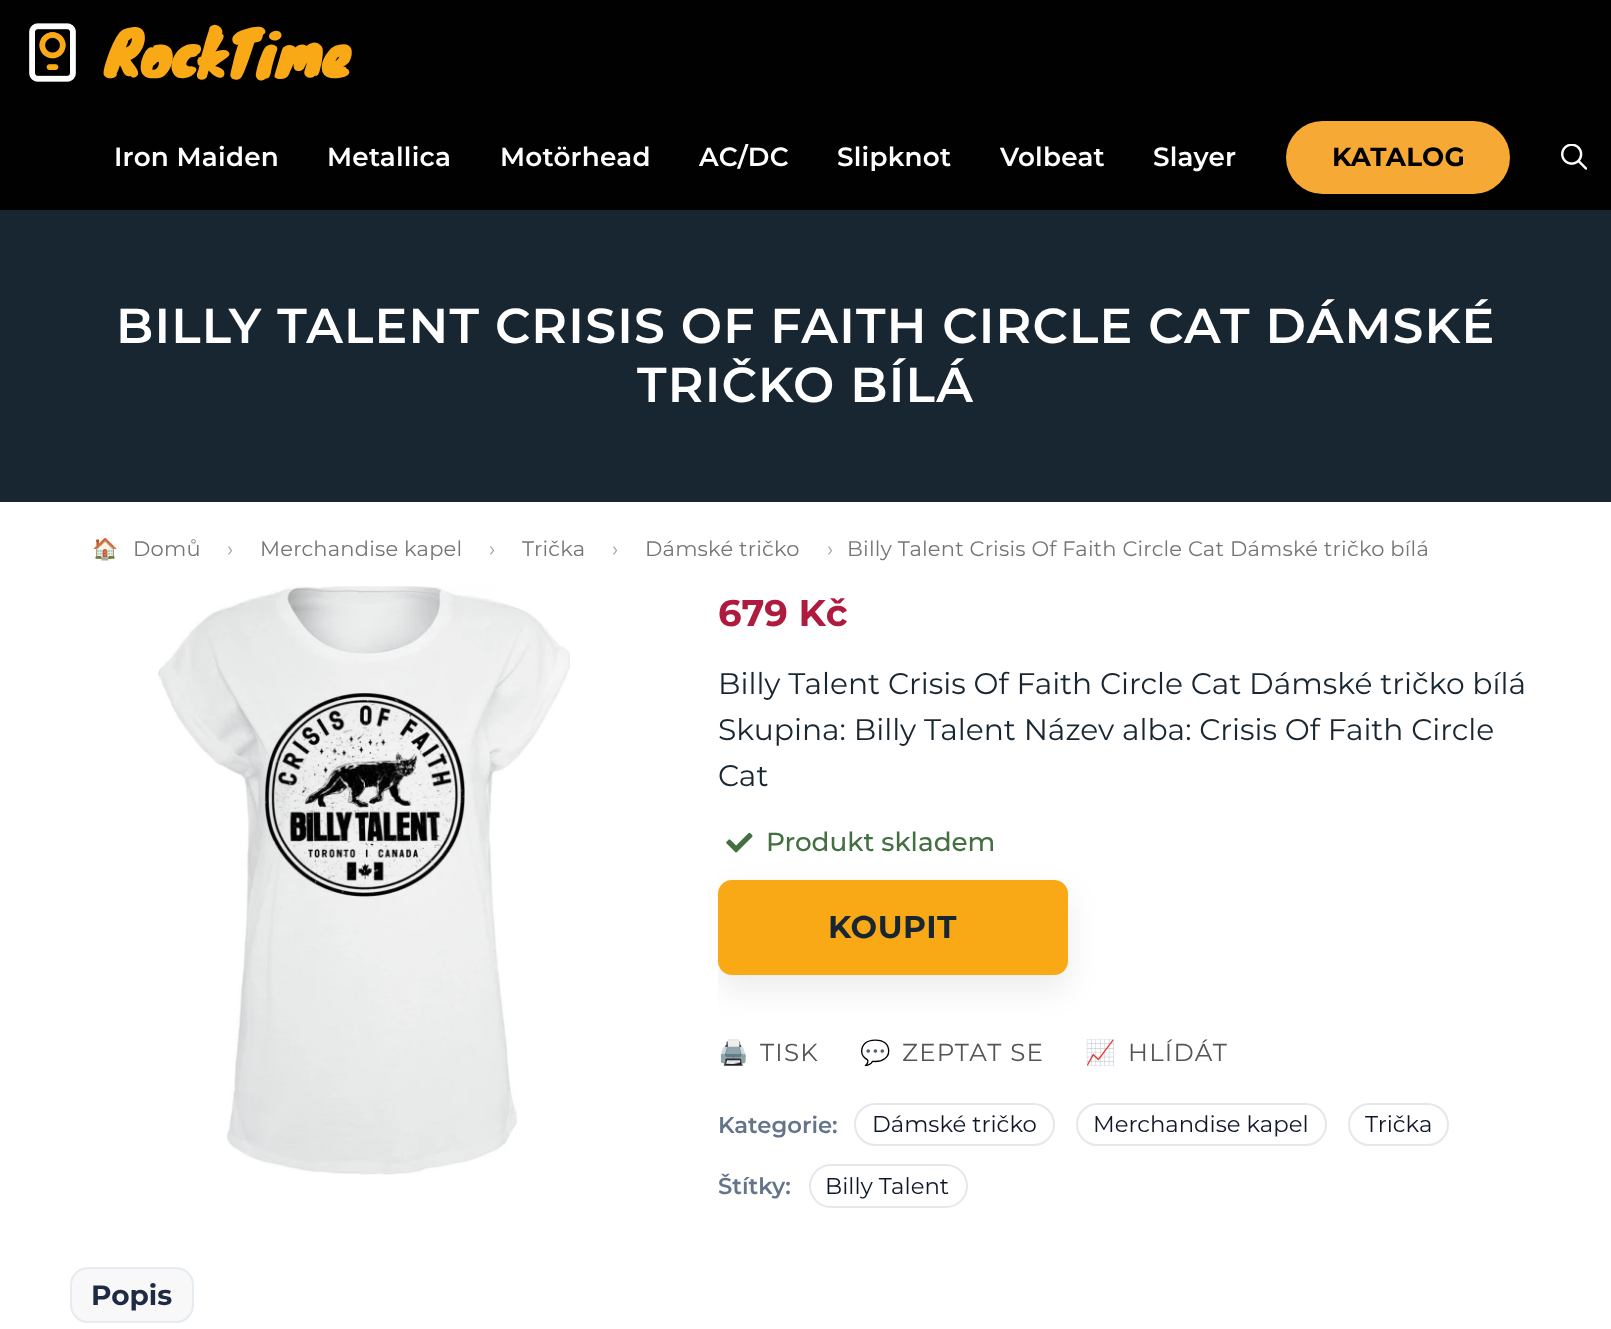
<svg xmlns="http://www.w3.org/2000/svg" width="1611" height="1329">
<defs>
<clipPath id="clip1"><rect x="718" y="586" width="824" height="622"/></clipPath>
<clipPath id="clip2"><rect x="718" y="586" width="824" height="622"/></clipPath>
</defs>
<rect width="100%" height="100%" fill="#fff"/>
<rect width="1611" height="210" fill="#010101"/>
<image x="29" y="23" width="47" height="59" href="media/1.png"/>
<text x="105" y="75" style="font-family:Knewave;font-size:59.5px;font-weight:bold;letter-spacing:0.25px;fill:#faa916">RockTime</text>
<text x="114" y="166" style="font-family:Montserrat;font-size:26.25px;font-weight:600;letter-spacing:0.25px;fill:#fff">Iron Maiden</text>
<text x="327" y="166" style="font-family:Montserrat;font-size:26.25px;font-weight:600;letter-spacing:0.25px;fill:#fff">Metallica</text>
<text x="500" y="166" style="font-family:Montserrat;font-size:26.25px;font-weight:600;letter-spacing:0.25px;fill:#fff">Motörhead</text>
<text x="699" y="166" style="font-family:Montserrat;font-size:26.25px;font-weight:600;letter-spacing:0.25px;fill:#fff">AC/DC</text>
<text x="837" y="166" style="font-family:Montserrat;font-size:26.25px;font-weight:600;letter-spacing:0.25px;fill:#fff">Slipknot</text>
<text x="1000" y="166" style="font-family:Montserrat;font-size:26.25px;font-weight:600;letter-spacing:0.25px;fill:#fff">Volbeat</text>
<text x="1153" y="166" style="font-family:Montserrat;font-size:26.25px;font-weight:600;letter-spacing:0.25px;fill:#fff">Slayer</text>
<rect x="1286" y="121" width="224" height="73" rx="36.5" fill="#f6a934"/>
<text x="1332" y="166" style="font-family:Montserrat;font-size:26.25px;font-weight:bold;letter-spacing:0.25px;fill:#000">KATALOG</text>
<image x="1561" y="144" width="26" height="26" href="media/2.png"/>
<rect y="210" width="1611" height="292" fill="#182631"/>
<text x="116" y="343" style="font-family:Montserrat;font-size:49px;font-weight:600;letter-spacing:1.2px;fill:#fff">BILLY TALENT CRISIS OF FAITH CIRCLE CAT DÁMSKÉ</text>
<text x="637" y="402" style="font-family:Montserrat;font-size:49px;font-weight:600;letter-spacing:1.2px;fill:#fff">TRIČKO BÍLÁ</text>
<text x="92" y="556" style="font-family:Noto Color Emoji;font-size:21px;letter-spacing:0.2px;fill:#919191">🏠</text>
<text x="133" y="556" style="font-family:Montserrat;font-size:21px;letter-spacing:0.2px;fill:#767676">Domů</text>
<text x="227" y="556" style="font-family:Montserrat;font-size:21px;letter-spacing:0.2px;fill:#9ca3af">›</text>
<text x="260" y="556" style="font-family:Montserrat;font-size:21px;letter-spacing:0.2px;fill:#767676">Merchandise kapel</text>
<text x="489" y="556" style="font-family:Montserrat;font-size:21px;letter-spacing:0.2px;fill:#9ca3af">›</text>
<text x="522" y="556" style="font-family:Montserrat;font-size:21px;letter-spacing:0.2px;fill:#767676">Trička</text>
<text x="612" y="556" style="font-family:Montserrat;font-size:21px;letter-spacing:0.2px;fill:#9ca3af">›</text>
<text x="645" y="556" style="font-family:Montserrat;font-size:21px;letter-spacing:0.2px;fill:#767676">Dámské tričko</text>
<text x="827" y="556" style="font-family:Montserrat;font-size:21px;letter-spacing:0.2px;fill:#9ca3af">›</text>
<text x="847" y="556" style="font-family:Montserrat;font-size:21px;letter-spacing:0.2px;fill:#767676">Billy Talent Crisis Of Faith Circle Cat Dámské tričko bílá</text>
<image x="158" y="586" width="412" height="589" href="media/3.png"/>
<text x="718" y="626" style="font-family:Montserrat;font-size:37px;font-weight:bold;fill:#af1b3f">679 Kč</text>
<text x="718" y="694" style="font-family:Montserrat;font-size:29.75px;fill:#182631">Billy Talent Crisis Of Faith Circle Cat Dámské tričko bílá</text>
<text x="718" y="740" style="font-family:Montserrat;font-size:29.75px;fill:#182631">Skupina: Billy Talent Název alba: Crisis Of Faith Circle</text>
<text x="718" y="786" style="font-family:Montserrat;font-size:29.75px;fill:#182631">Cat</text>
<image x="726" y="832" width="27" height="21" href="media/4.png"/>
<text x="766" y="851" style="font-family:Montserrat;font-size:26.25px;font-weight:500;fill:#446f40">Produkt skladem</text>
<g clip-path="url(#clip1)">
<rect x="718" y="894" width="350" height="95" rx="14" fill="#00000014" filter="blur(16px)"/>
</g>
<rect x="718" y="880" width="350" height="95" rx="14" fill="#faa916"/>
<text x="828" y="938" style="font-family:Montserrat;font-size:31.5px;font-weight:bold;letter-spacing:0.5px;fill:#182631">KOUPIT</text>
<g clip-path="url(#clip2)">
<text x="718" y="1061" style="font-family:Noto Color Emoji;font-size:24.5px;letter-spacing:1.25px;fill:#555">🖨️</text>
</g>
<text x="760" y="1061" style="font-family:Montserrat;font-size:24.5px;letter-spacing:1.25px;fill:#555">TISK</text>
<text x="860" y="1061" style="font-family:Noto Color Emoji;font-size:24.5px;letter-spacing:1.25px;fill:#555">💬</text>
<text x="902" y="1061" style="font-family:Montserrat;font-size:24.5px;letter-spacing:1.25px;fill:#555">ZEPTAT SE</text>
<text x="1085" y="1061" style="font-family:Noto Color Emoji;font-size:24.5px;letter-spacing:1.25px;fill:#555">📈</text>
<text x="1128" y="1061" style="font-family:Montserrat;font-size:24.5px;letter-spacing:1.25px;fill:#555">HLÍDÁT</text>
<text x="718" y="1133" style="font-family:Montserrat;font-size:22.75px;font-weight:600;fill:#64748b">Kategorie:</text>
<rect x="855" y="1104" width="199" height="41" rx="20.5" fill="none" stroke="#e5e7eb" stroke-width="2"/>
<text x="872" y="1132" style="font-family:Montserrat;font-size:22.75px;fill:#0f172a">Dámské tričko</text>
<rect x="1077" y="1104" width="249" height="41" rx="20.5" fill="none" stroke="#e5e7eb" stroke-width="2"/>
<text x="1093" y="1132" style="font-family:Montserrat;font-size:22.75px;fill:#0f172a">Merchandise kapel</text>
<rect x="1349" y="1104" width="99" height="41" rx="20.5" fill="none" stroke="#e5e7eb" stroke-width="2"/>
<text x="1365" y="1132" style="font-family:Montserrat;font-size:22.75px;fill:#0f172a">Trička</text>
<text x="718" y="1194" style="font-family:Montserrat;font-size:22.75px;font-weight:600;fill:#64748b">Štítky:</text>
<rect x="810" y="1165" width="157" height="42" rx="21" fill="none" stroke="#e5e7eb" stroke-width="2"/>
<text x="825" y="1194" style="font-family:Montserrat;font-size:22.75px;fill:#0f172a">Billy Talent</text>
<rect x="71" y="1268" width="122" height="54" rx="17" fill="#f8f8f8" stroke="#e6ebf2" stroke-width="2"/>
<text x="91" y="1305" style="font-family:Montserrat;font-size:28px;font-weight:bold;fill:#1f2a44">Popis</text>
</svg>
